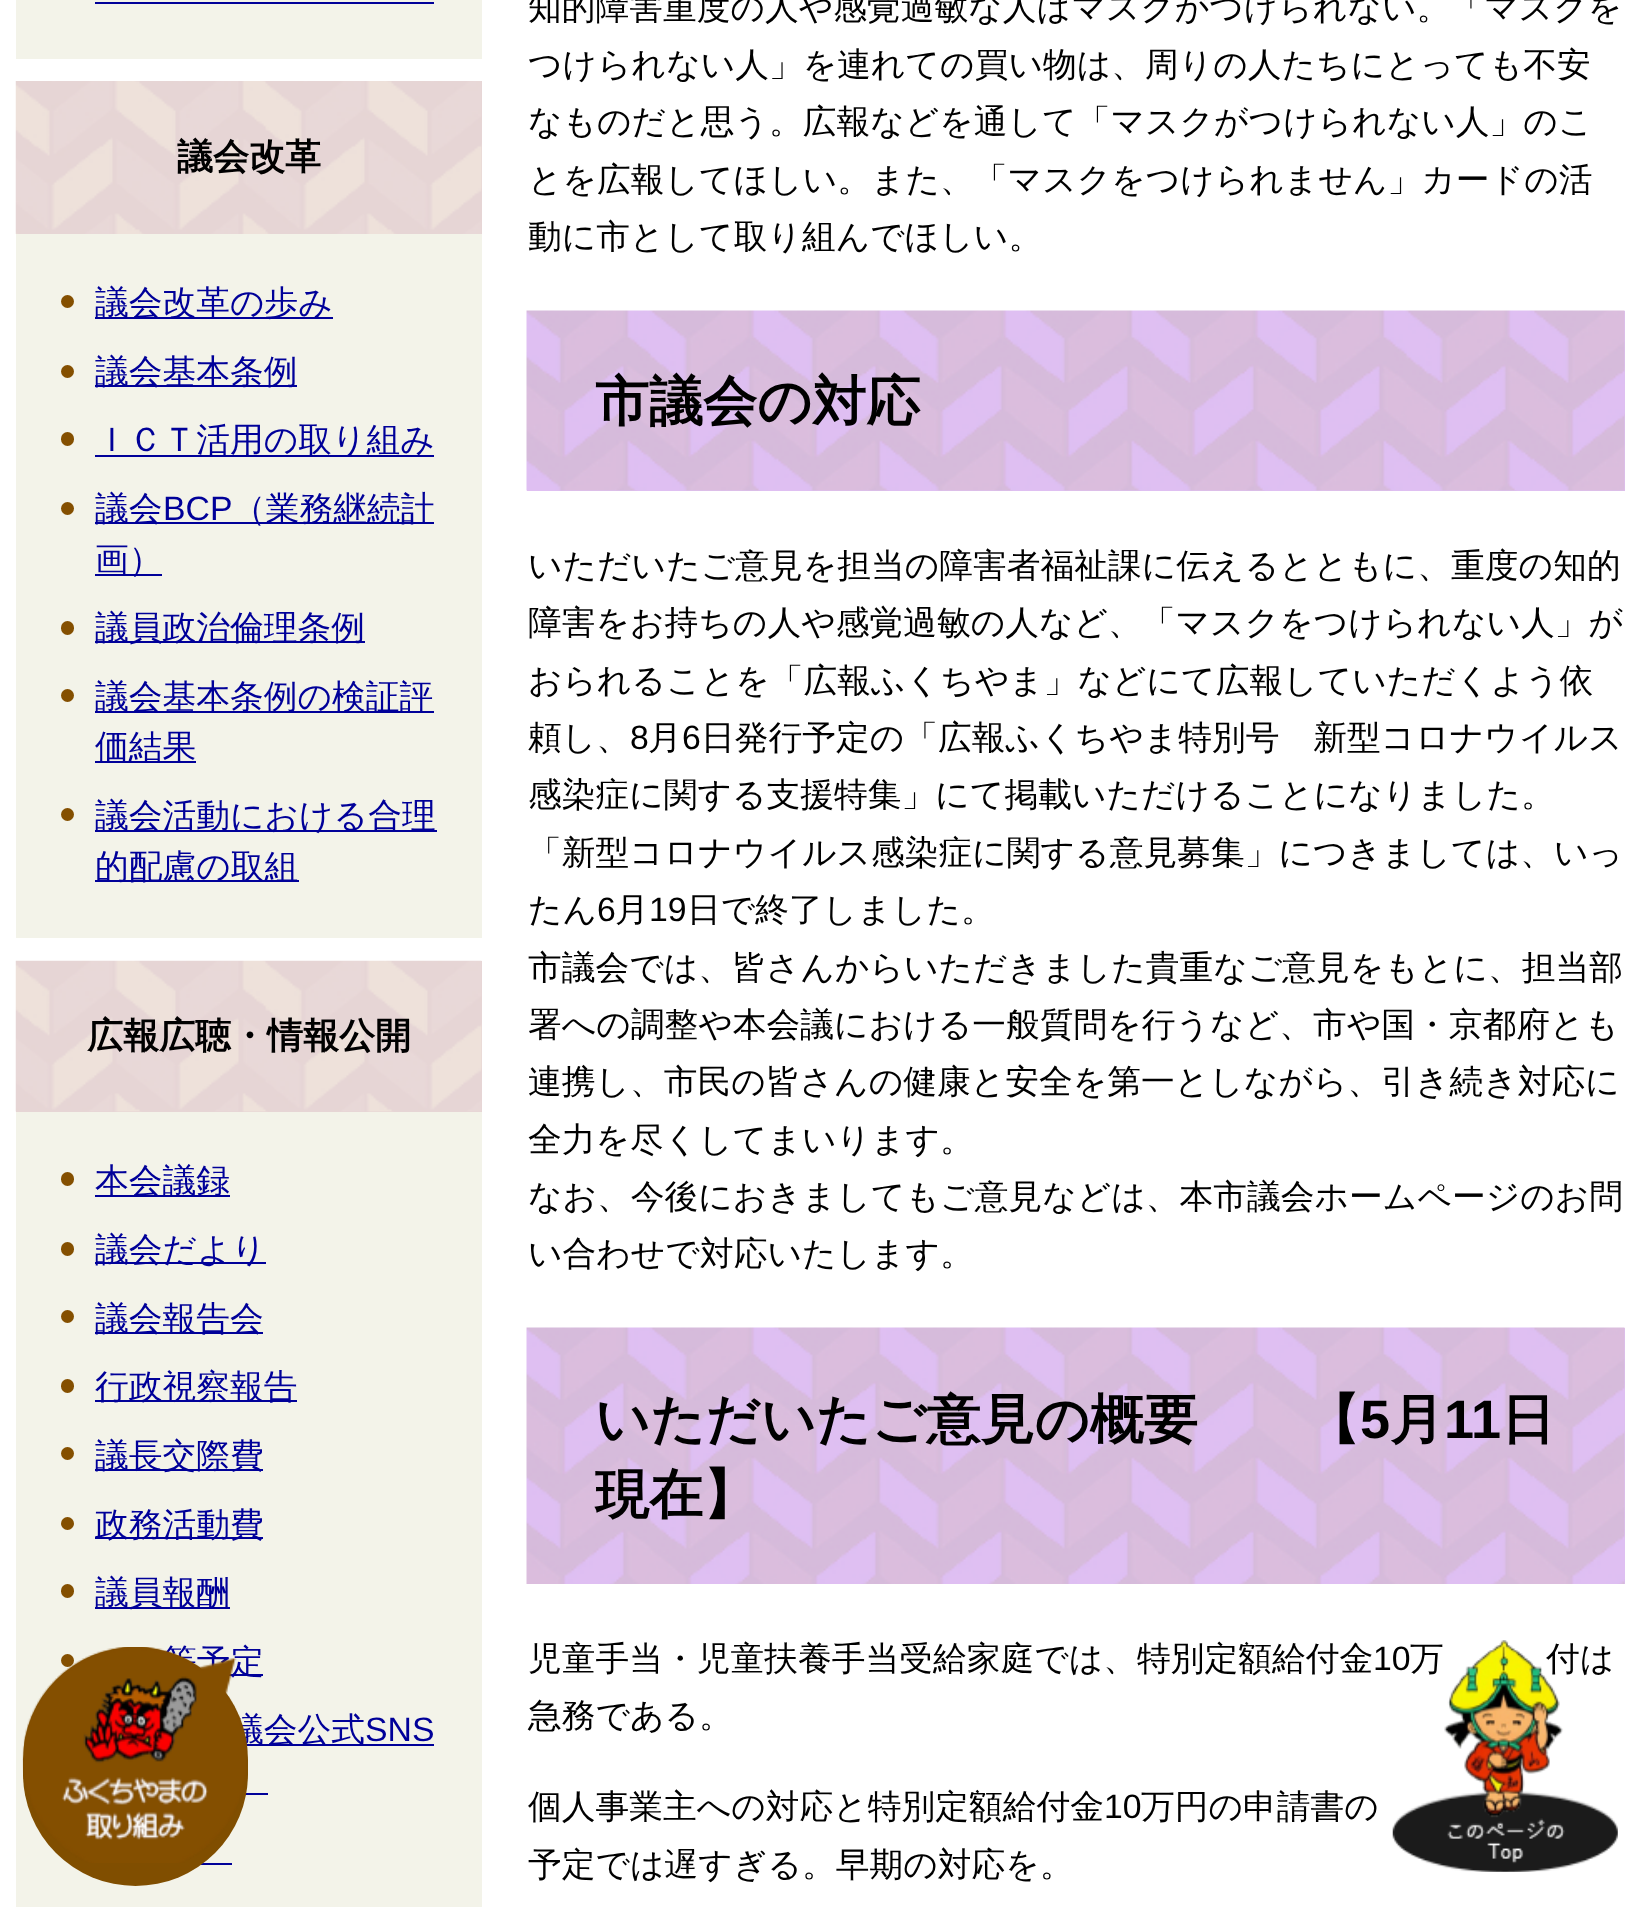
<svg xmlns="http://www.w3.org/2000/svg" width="1640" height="1907">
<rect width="100%" height="100%" fill="#fff"/>
<rect x="16" width="466" height="59" fill="#f3f3e9"/>
<rect x="95" y="2" width="339" height="2" fill="#009"/>
<rect x="481" y="81" width="1" height="153" fill="#e6d5d5"/>
<image x="15" y="81" width="467" height="153" href="media/1.png"/>
<text x="177" y="169" style="font-family:WenQuanYi Zen Hei;font-size:36px;font-weight:bold;fill:#000">議会改革</text>
<rect x="16" y="234" width="466" height="704" fill="#f3f3e9"/>
<circle cx="67.5" cy="301.5" r="6.5" fill="#844f00"/>
<rect x="95" y="317" width="238" height="2" fill="#009"/>
<text x="95" y="314" style="font-family:WenQuanYi Zen Hei;font-size:33.75px;font-weight:500;fill:#009">議会改革の歩み</text>
<circle cx="67.5" cy="371.5" r="6.5" fill="#844f00"/>
<rect x="95" y="385" width="202" height="2" fill="#009"/>
<text x="95" y="383" style="font-family:WenQuanYi Zen Hei;font-size:33.75px;font-weight:500;fill:#009">議会基本条例</text>
<rect x="61" y="432" width="13" height="14" rx="6.5" fill="#844f00"/>
<rect x="95" y="455" width="339" height="2" fill="#009"/>
<text x="95" y="451" style="font-family:WenQuanYi Zen Hei;font-size:33.75px;font-weight:500;fill:#009">ＩＣＴ活用の取り組み</text>
<circle cx="67.5" cy="508.5" r="6.5" fill="#844f00"/>
<rect x="95" y="522" width="339" height="2" fill="#009"/>
<text x="95" y="520" style="font-family:WenQuanYi Zen Hei;font-size:33.75px;font-weight:500;fill:#009">議会</text>
<text x="163" y="520" style="font-family:Liberation Sans;font-size:33.75px;fill:#009">BCP</text>
<text x="232" y="520" style="font-family:WenQuanYi Zen Hei;font-size:33.75px;font-weight:500;fill:#009">（業務継続計</text>
<rect x="95" y="574" width="67" height="2" fill="#009"/>
<text x="95" y="571" style="font-family:WenQuanYi Zen Hei;font-size:33.75px;font-weight:500;fill:#009">画）</text>
<rect x="61" y="621" width="13" height="14" rx="6.5" fill="#844f00"/>
<rect x="95" y="641" width="270" height="2" fill="#009"/>
<text x="95" y="639" style="font-family:WenQuanYi Zen Hei;font-size:33.75px;font-weight:500;fill:#009">議員政治倫理条例</text>
<circle cx="67.5" cy="695.5" r="6.5" fill="#844f00"/>
<rect x="95" y="711" width="339" height="2" fill="#009"/>
<text x="95" y="708" style="font-family:WenQuanYi Zen Hei;font-size:33.75px;font-weight:500;fill:#009">議会基本条例の検証評</text>
<rect x="95" y="761" width="101" height="2" fill="#009"/>
<text x="95" y="758" style="font-family:WenQuanYi Zen Hei;font-size:33.75px;font-weight:500;fill:#009">価結果</text>
<circle cx="67.5" cy="814.5" r="6.5" fill="#844f00"/>
<rect x="95" y="830" width="342" height="2" fill="#009"/>
<text x="95" y="827" style="font-family:WenQuanYi Zen Hei;font-size:33.75px;font-weight:500;fill:#009">議会活動における合理</text>
<rect x="95" y="880" width="204" height="2" fill="#009"/>
<text x="95" y="878" style="font-family:WenQuanYi Zen Hei;font-size:33.75px;font-weight:500;fill:#009">的配慮の取組</text>
<rect x="16" y="961" width="466" height="151" fill="#e6d5d5"/>
<image x="15" y="960" width="467" height="152" href="media/2.png"/>
<text x="87" y="1048" style="font-family:WenQuanYi Zen Hei;font-size:36px;font-weight:bold;fill:#000">広報広聴・情報公開</text>
<rect x="16" y="1112" width="466" height="795" fill="#f3f3e9"/>
<rect x="61" y="1172" width="13" height="14" rx="6.5" fill="#844f00"/>
<rect x="95" y="1195" width="135" height="2" fill="#009"/>
<text x="95" y="1192" style="font-family:WenQuanYi Zen Hei;font-size:33.75px;font-weight:500;fill:#009">本会議録</text>
<rect x="61" y="1242" width="13" height="14" rx="6.5" fill="#844f00"/>
<rect x="95" y="1262" width="171" height="2" fill="#009"/>
<text x="95" y="1261" style="font-family:WenQuanYi Zen Hei;font-size:33.75px;font-weight:500;fill:#009">議会だより</text>
<circle cx="67.5" cy="1316.5" r="6.5" fill="#844f00"/>
<rect x="95" y="1332" width="168" height="2" fill="#009"/>
<text x="95" y="1330" style="font-family:WenQuanYi Zen Hei;font-size:33.75px;font-weight:500;fill:#009">議会報告会</text>
<rect x="61" y="1379" width="13" height="14" rx="6.5" fill="#844f00"/>
<rect x="95" y="1400" width="202" height="2" fill="#009"/>
<text x="95" y="1398" style="font-family:WenQuanYi Zen Hei;font-size:33.75px;font-weight:500;fill:#009">行政視察報告</text>
<circle cx="67.5" cy="1453.5" r="6.5" fill="#844f00"/>
<rect x="95" y="1469" width="168" height="2" fill="#009"/>
<text x="95" y="1467" style="font-family:WenQuanYi Zen Hei;font-size:33.75px;font-weight:500;fill:#009">議長交際費</text>
<circle cx="67.5" cy="1523.5" r="6.5" fill="#844f00"/>
<rect x="95" y="1537" width="168" height="2" fill="#009"/>
<text x="95" y="1536" style="font-family:WenQuanYi Zen Hei;font-size:33.75px;font-weight:500;fill:#009">政務活動費</text>
<rect x="61" y="1584" width="13" height="14" rx="6.5" fill="#844f00"/>
<rect x="95" y="1607" width="135" height="2" fill="#009"/>
<text x="95" y="1604" style="font-family:WenQuanYi Zen Hei;font-size:33.75px;font-weight:500;fill:#009">議員報酬</text>
<circle cx="67.5" cy="1660.5" r="6.5" fill="#844f00"/>
<rect x="229" y="1674" width="34" height="2" fill="#009"/>
<text x="163" y="1673" style="font-family:WenQuanYi Zen Hei;font-size:33.75px;font-weight:500;fill:#009">等予定</text>
<rect x="246" y="1744" width="188" height="2" fill="#009"/>
<text x="230" y="1741" style="font-family:WenQuanYi Zen Hei;font-size:33.75px;font-weight:500;fill:#009">議会公式</text>
<rect x="245" y="1793" width="23" height="2" fill="#009"/>
<text x="365" y="1741" style="font-family:Liberation Sans;font-size:33.75px;fill:#009">SNS</text>
<rect x="201" y="1863" width="31" height="2" fill="#009"/>
<text x="528" y="19" style="font-family:WenQuanYi Zen Hei;font-size:33.75px;font-weight:500;fill:#000">知的障害重度の人や感覚過敏な人はマスクがつけられない。「マスクを</text>
<text x="528" y="76" style="font-family:WenQuanYi Zen Hei;font-size:33.75px;font-weight:500;fill:#000">つけられない人」を連れての買い物は、周りの人たちにとっても不安</text>
<text x="528" y="133" style="font-family:WenQuanYi Zen Hei;font-size:33.75px;font-weight:500;fill:#000">なものだと思う。広報などを通して「マスクがつけられない人」のこ</text>
<text x="528" y="191" style="font-family:WenQuanYi Zen Hei;font-size:33.75px;font-weight:500;fill:#000">とを広報してほしい。また、「マスクをつけられません」カードの活</text>
<text x="528" y="248" style="font-family:WenQuanYi Zen Hei;font-size:33.75px;font-weight:500;fill:#000">動に市として取り組んでほしい。</text>
<rect x="527" y="311" width="1098" height="180" fill="#dfbff2"/>
<image x="526" y="310" width="1099" height="181" href="media/3.png"/>
<text x="595" y="420" style="font-family:WenQuanYi Zen Hei;font-size:54px;font-weight:bold;fill:#000">市議会の対応</text>
<text x="528" y="577" style="font-family:WenQuanYi Zen Hei;font-size:33.75px;font-weight:500;fill:#000">いただいたご意見を担当の障害者福祉課に伝えるとともに、重度の知的</text>
<text x="528" y="634" style="font-family:WenQuanYi Zen Hei;font-size:33.75px;font-weight:500;fill:#000">障害をお持ちの人や感覚過敏の人など、「マスクをつけられない人」が</text>
<text x="528" y="692" style="font-family:WenQuanYi Zen Hei;font-size:33.75px;font-weight:500;fill:#000">おられることを「広報ふくちやま」などにて広報していただくよう依</text>
<text x="528" y="749" style="font-family:WenQuanYi Zen Hei;font-size:33.75px;font-weight:500;fill:#000">頼し、</text>
<text x="630" y="749" style="font-family:Liberation Sans;font-size:33.75px;fill:#000">8</text>
<text x="648" y="749" style="font-family:WenQuanYi Zen Hei;font-size:33.75px;font-weight:500;fill:#000">月</text>
<text x="682" y="749" style="font-family:Liberation Sans;font-size:33.75px;fill:#000">6</text>
<text x="701" y="749" style="font-family:WenQuanYi Zen Hei;font-size:33.75px;font-weight:500;fill:#000">日発行予定の「広報ふくちやま特別号　新型コロナウイルス</text>
<text x="528" y="806" style="font-family:WenQuanYi Zen Hei;font-size:33.75px;font-weight:500;fill:#000">感染症に関する支援特集」にて掲載いただけることになりました。</text>
<text x="528" y="864" style="font-family:WenQuanYi Zen Hei;font-size:33.75px;font-weight:500;fill:#000">「新型コロナウイルス感染症に関する意見募集」につきましては、いっ</text>
<text x="528" y="921" style="font-family:WenQuanYi Zen Hei;font-size:33.75px;font-weight:500;fill:#000">たん</text>
<text x="597" y="921" style="font-family:Liberation Sans;font-size:33.75px;fill:#000">6</text>
<text x="615" y="921" style="font-family:WenQuanYi Zen Hei;font-size:33.75px;font-weight:500;fill:#000">月</text>
<text x="649" y="921" style="font-family:Liberation Sans;font-size:33.75px;fill:#000">19</text>
<text x="687" y="921" style="font-family:WenQuanYi Zen Hei;font-size:33.75px;font-weight:500;fill:#000">日で終了しました。</text>
<text x="528" y="979" style="font-family:WenQuanYi Zen Hei;font-size:33.75px;font-weight:500;fill:#000">市議会では、皆さんからいただきました貴重なご意見をもとに、担当部</text>
<text x="528" y="1036" style="font-family:WenQuanYi Zen Hei;font-size:33.75px;font-weight:500;fill:#000">署への調整や本会議における一般質問を行うなど、市や国・京都府とも</text>
<text x="528" y="1093" style="font-family:WenQuanYi Zen Hei;font-size:33.75px;font-weight:500;fill:#000">連携し、市民の皆さんの健康と安全を第一としながら、引き続き対応に</text>
<text x="528" y="1151" style="font-family:WenQuanYi Zen Hei;font-size:33.75px;font-weight:500;fill:#000">全力を尽くしてまいります。</text>
<text x="528" y="1208" style="font-family:WenQuanYi Zen Hei;font-size:33.75px;font-weight:500;fill:#000">なお、今後におきましてもご意見などは、本市議会ホームページのお問</text>
<text x="528" y="1265" style="font-family:WenQuanYi Zen Hei;font-size:33.75px;font-weight:500;fill:#000">い合わせで対応いたします。</text>
<rect x="1624" y="1328" width="1" height="256" fill="#dfbff2"/>
<image x="526" y="1327" width="1099" height="257" href="media/4.png"/>
<text x="595" y="1438" style="font-family:WenQuanYi Zen Hei;font-size:54px;font-weight:bold;fill:#000">いただいたご意見の概要　　【</text>
<text x="1360" y="1438" style="font-family:Liberation Sans;font-size:54px;font-weight:bold;fill:#000">5</text>
<text x="1390" y="1438" style="font-family:WenQuanYi Zen Hei;font-size:54px;font-weight:bold;fill:#000">月</text>
<text x="1444" y="1438" style="font-family:Liberation Sans;font-size:54px;font-weight:bold;fill:#000">11</text>
<text x="1501" y="1438" style="font-family:WenQuanYi Zen Hei;font-size:54px;font-weight:bold;fill:#000">日</text>
<text x="595" y="1513" style="font-family:WenQuanYi Zen Hei;font-size:54px;font-weight:bold;fill:#000">現在】</text>
<text x="528" y="1670" style="font-family:WenQuanYi Zen Hei;font-size:33.75px;font-weight:500;fill:#000">児童手当・児童扶養手当受給家庭では、特別定額給付金</text>
<text x="1373" y="1670" style="font-family:Liberation Sans;font-size:33.75px;fill:#000">10</text>
<text x="1410" y="1670" style="font-family:WenQuanYi Zen Hei;font-size:33.75px;font-weight:500;fill:#000">万</text>
<text x="1546" y="1670" style="font-family:WenQuanYi Zen Hei;font-size:33.75px;font-weight:500;fill:#000">付は</text>
<text x="528" y="1727" style="font-family:WenQuanYi Zen Hei;font-size:33.75px;font-weight:500;fill:#000">急務である。</text>
<text x="528" y="1818" style="font-family:WenQuanYi Zen Hei;font-size:33.75px;font-weight:500;fill:#000">個人事業主への対応と特別定額給付金</text>
<text x="1104" y="1818" style="font-family:Liberation Sans;font-size:33.75px;fill:#000">10</text>
<text x="1141" y="1818" style="font-family:WenQuanYi Zen Hei;font-size:33.75px;font-weight:500;fill:#000">万円の申請書の</text>
<text x="528" y="1876" style="font-family:WenQuanYi Zen Hei;font-size:33.75px;font-weight:500;fill:#000">予定では遅すぎる。早期の対応を。</text>
<rect x="23" y="1647" width="225" height="239" rx="112.5" fill="#804e00"/>
<image x="22" y="1647" width="225" height="216" href="media/5.png"/>
<image x="1392" y="1640" width="226" height="232" href="media/6.png"/>
</svg>
